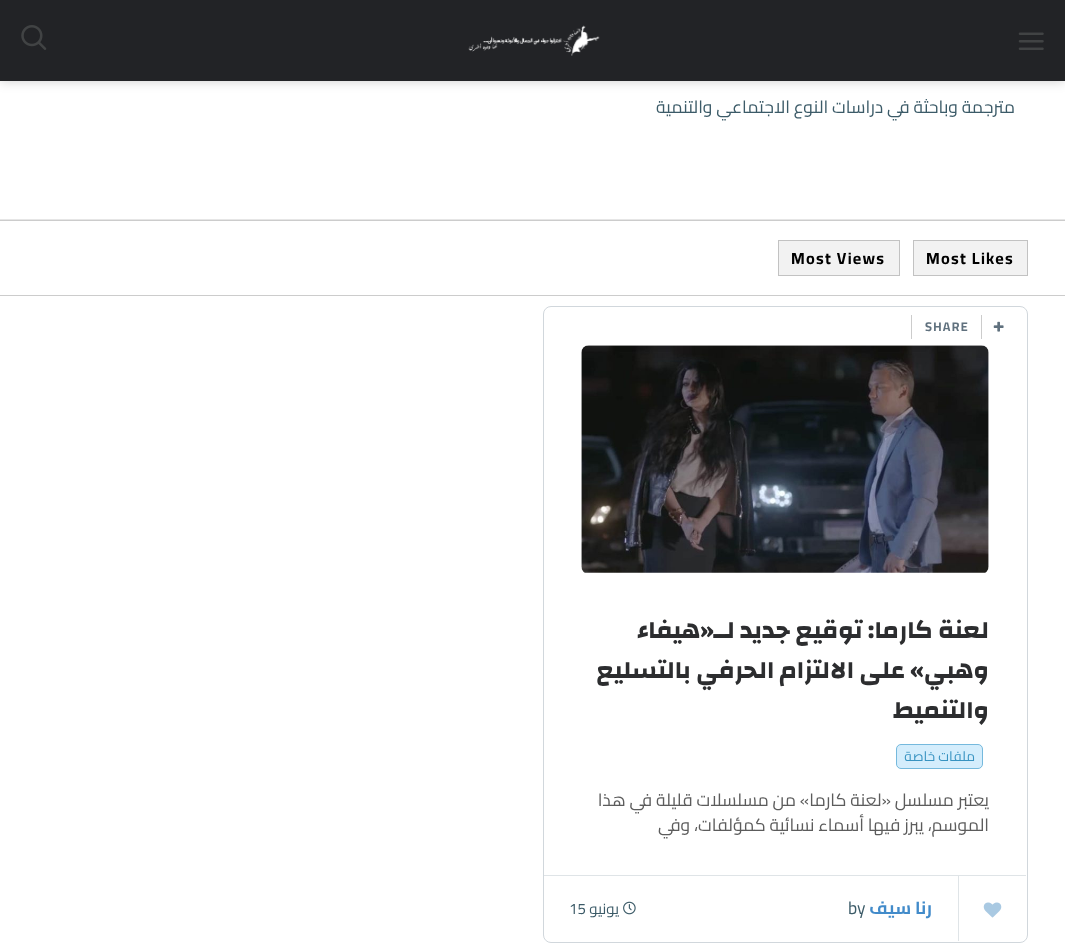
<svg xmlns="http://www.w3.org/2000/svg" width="1065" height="943">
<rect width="100%" height="100%" fill="#fff"/>
<rect width="1065" height="81" fill="#00000033" filter="blur(6px)"/>
<rect width="1065" height="81" fill="#222326"/>
<image x="1018" y="32" width="26" height="18" href="media/1.png"/>
<image x="468" y="25" width="132" height="31" href="media/2.png"/>
<image x="21" y="25" width="26" height="25" href="media/3.png"/>
<rect y="219" width="1065" height="1" fill="#e6e6e6"/>
<text x="1015" y="113" style="font-family:Cairo;font-size:17.5px;direction:rtl;fill:#3c5b68">مترجمة وباحثة في دراسات النوع الاجتماعي والتنمية</text>
<rect y="220" width="1065" height="1" fill="#ccc"/>
<rect y="295" width="1065" height="1" fill="#ccc"/>
<rect x="913.5" y="240.5" width="114" height="35" fill="#f2f2f2" stroke="#c2c2c2"/>
<text x="926" y="264" style="font-family:Cairo;font-size:16.25px;font-weight:bold;letter-spacing:1.25px;fill:#000">Most Likes</text>
<rect x="778.5" y="240.5" width="121" height="35" fill="#f2f2f2" stroke="#c2c2c2"/>
<text x="791" y="264" style="font-family:Cairo;font-size:16.25px;font-weight:bold;letter-spacing:1.25px;fill:#000">Most Views</text>
<rect x="543.5" y="306.5" width="484" height="636" rx="7.5" fill="none" stroke="#d1d7dc"/>
<image x="993" y="321" width="11" height="11" href="media/4.png"/>
<text x="925" y="331" style="font-family:Cairo;font-size:12.5px;font-weight:bold;letter-spacing:1.25px;fill:#60717e">SHARE</text>
<rect x="981" y="315" width="1" height="24" fill="#ccc"/>
<rect x="911" y="315" width="1" height="24" fill="#ccc"/>
<image x="581" y="345" width="408" height="228" href="media/5.png"/>
<text x="989" y="638" style="font-family:Changa;font-size:25px;font-weight:bold;direction:rtl;fill:#2c2d2f">لعنة كارما: توقيع جديد لــ«هيفاء</text>
<text x="989" y="678" style="font-family:Changa;font-size:25px;font-weight:bold;direction:rtl;fill:#2c2d2f">وهبي» على الالتزام الحرفي بالتسليع</text>
<text x="989" y="718" style="font-family:Changa;font-size:25px;font-weight:bold;direction:rtl;fill:#2c2d2f">والتنميط</text>
<rect x="896.5" y="744.5" width="86" height="24" rx="4.5" fill="#d4edfc" stroke="#75b9dd"/>
<text x="975" y="761" style="font-family:Cairo;font-size:13.75px;direction:rtl;fill:#3893c1">ملفات خاصة</text>
<text x="989" y="806" style="font-family:Cairo;font-size:17.5px;direction:rtl;fill:#5c5c5c">يعتبر مسلسل «لعنة كارما» من مسلسلات قليلة في هذا</text>
<text x="989" y="831" style="font-family:Cairo;font-size:17.5px;direction:rtl;fill:#5c5c5c">الموسم، يبرز فيها أسماء نسائية كمؤلفات، وفي</text>
<rect x="544" y="875" width="482" height="1" fill="#dfe4e7"/>
<rect x="958" y="876" width="1" height="65" fill="#dfe4e7"/>
<image x="983" y="902" width="19" height="16" href="media/6.png"/>
<text x="932" y="914" style="font-family:Cairo;font-size:17.5px;font-weight:bold;direction:rtl;fill:#428bca">رنا سيف</text>
<text x="848" y="914" style="font-family:Cairo;font-size:17.5px;fill:#3c5b68">by</text>
<image x="623" y="901" width="13" height="14" href="media/7.png"/>
<text x="619" y="914" style="font-family:Cairo;font-size:15px;direction:rtl;fill:#3c5b68">يونيو</text>
<text x="569" y="914" style="font-family:Cairo;font-size:15px;fill:#3c5b68">15</text>
</svg>
